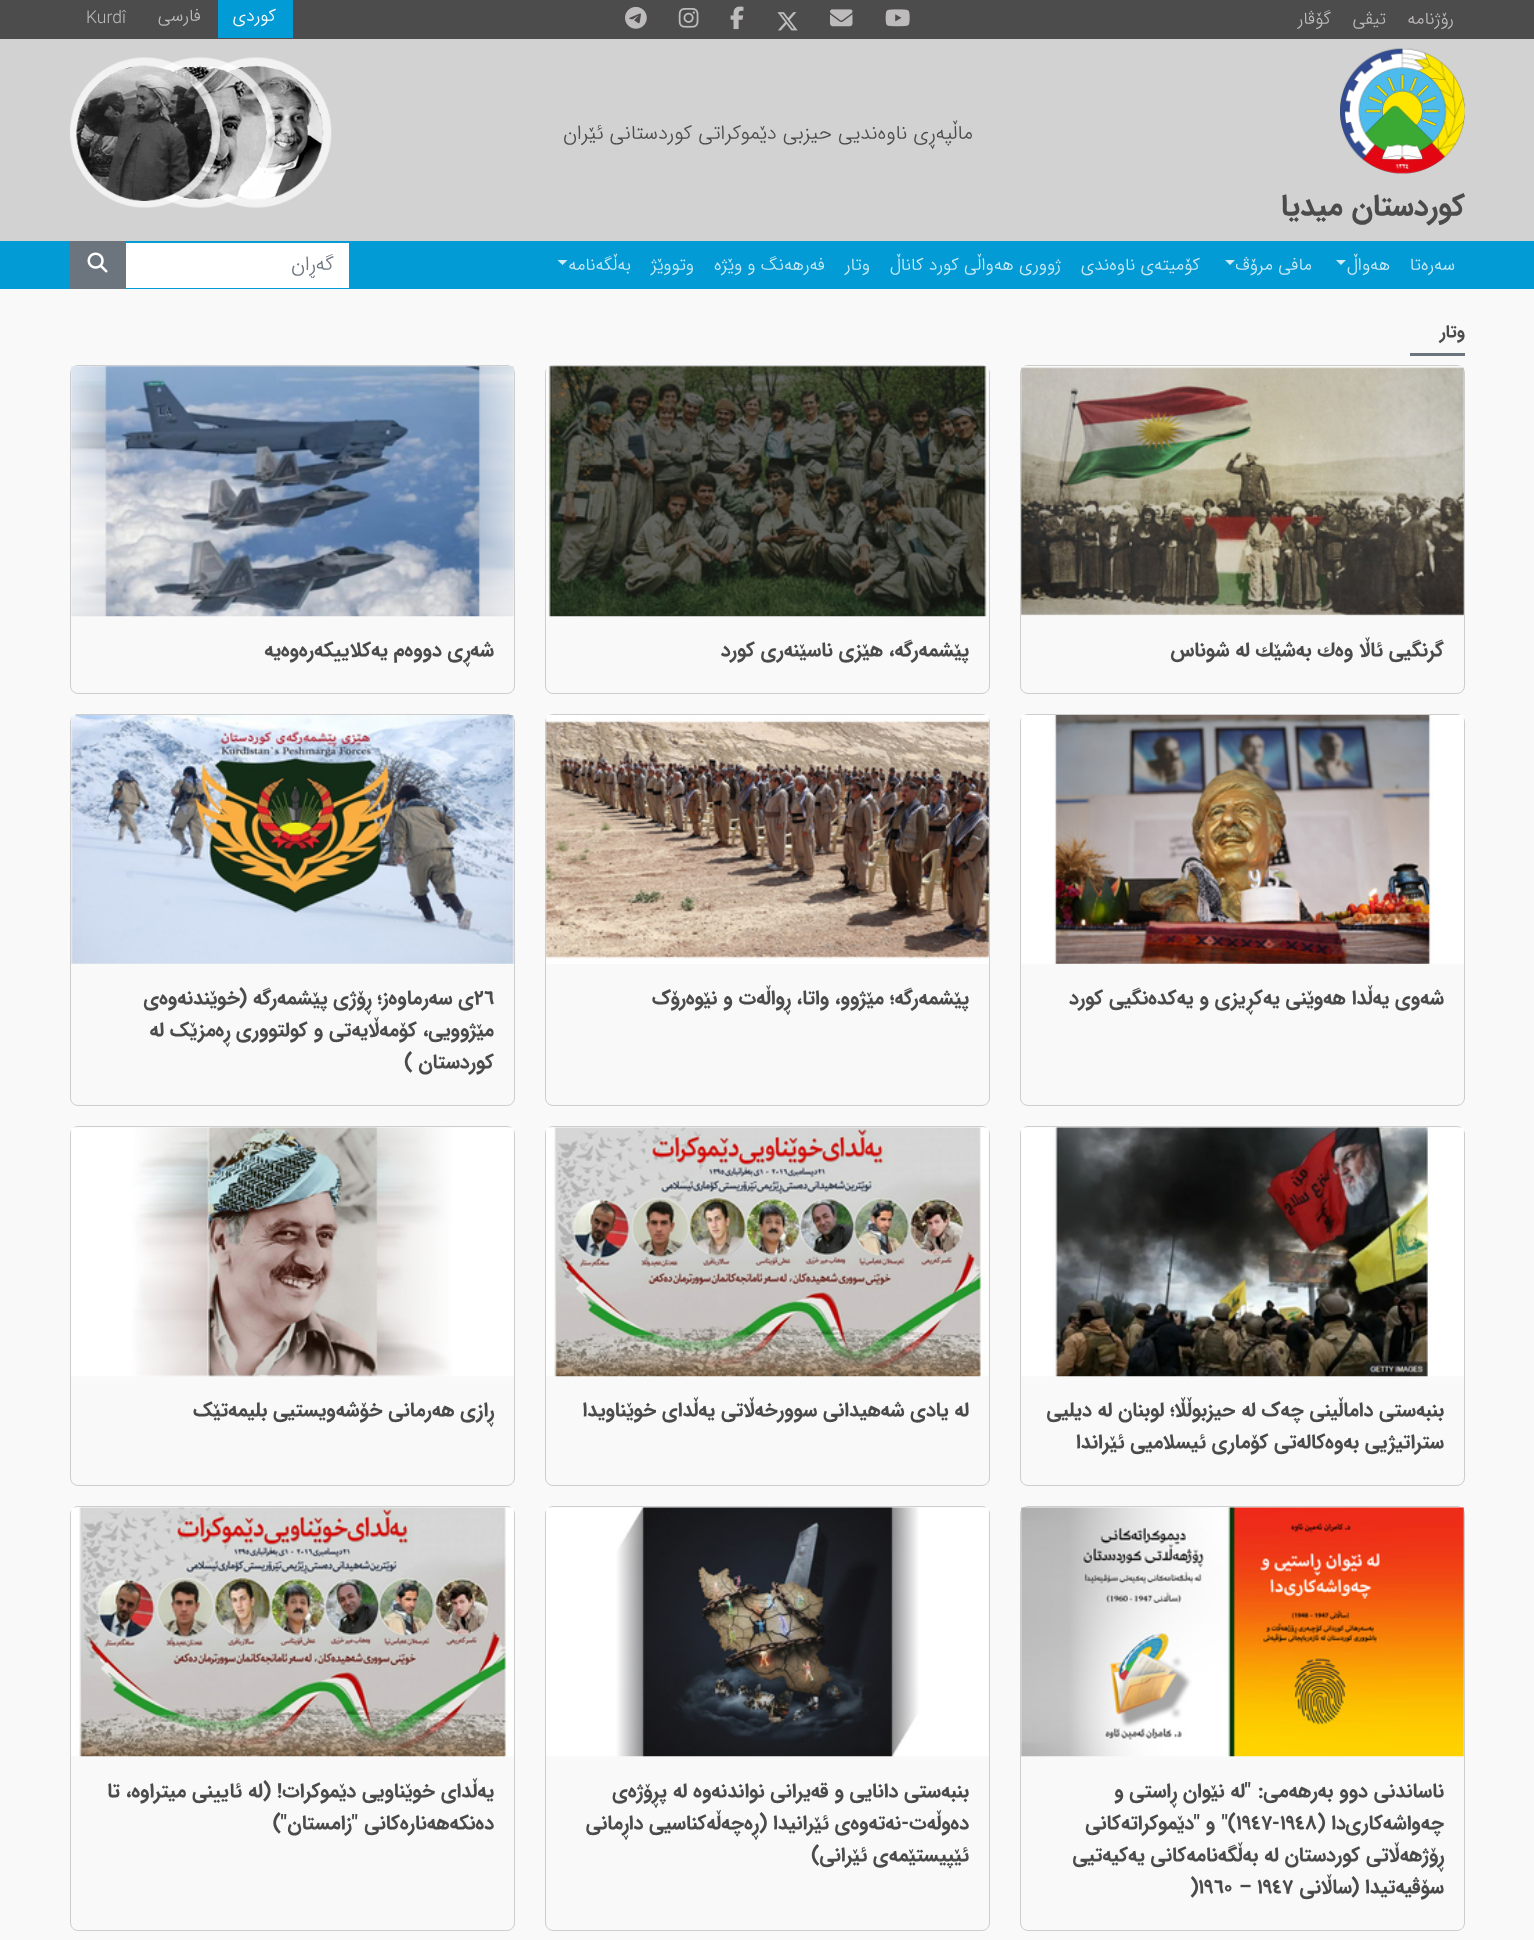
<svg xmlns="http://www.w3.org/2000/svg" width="1534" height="1940">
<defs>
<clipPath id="clip1"><rect x="160" y="253" width="174" height="25"/></clipPath>
</defs>
<rect width="100%" height="100%" fill="#f9f9f9"/>
<rect width="1534" height="39" fill="#4d4c4c"/>
<text x="1454" y="24" style="font-family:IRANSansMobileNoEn;font-size:17.5px;font-weight:300;direction:rtl;fill:#bdbbbb">رۆژنامە</text>
<text x="1386" y="24" style="font-family:IRANSansMobileNoEn;font-size:17.5px;font-weight:300;direction:rtl;fill:#bdbbbb">تیڤی</text>
<text x="1331" y="24" style="font-family:IRANSansMobileNoEn;font-size:17.5px;font-weight:300;direction:rtl;fill:#bdbbbb">گۆڤار</text>
<image x="885" y="9" width="25" height="18" href="media/1.png"/>
<image x="830" y="9" width="23" height="18" href="media/2.png"/>
<image x="777" y="12" width="21" height="19" href="media/3.png"/>
<image x="730" y="6" width="14" height="24" href="media/4.png"/>
<image x="678" y="8" width="21" height="20" href="media/5.png"/>
<image x="625" y="6" width="22" height="23" href="media/6.png"/>
<rect x="218" width="75" height="38" fill="#039bd5"/>
<text x="276" y="21" style="font-family:IRANSansMobileNoEn;font-size:17.5px;font-weight:300;direction:rtl;fill:#fff">كوردی</text>
<text x="201" y="21" style="font-family:IRANSansMobileNoEn;font-size:17.5px;font-weight:300;direction:rtl;fill:#bdbbbb">فارسی</text>
<text x="86" y="23" style="font-family:Roboto;font-size:17.5px;font-weight:300;fill:#bdbbbb">Kurdî</text>
<rect y="39" width="1534" height="202" fill="#d2d2d2"/>
<text x="973" y="139" style="font-family:IRANSansMobileNoEn;font-size:20px;font-weight:300;direction:rtl;fill:#4b4b4b">ماڵپەڕی ناوەندیی حیزبی دێموکراتی کوردستانی ئێران</text>
<image x="217" y="57" width="115" height="151" href="media/9.png"/>
<image x="162" y="57" width="113" height="151" href="media/8.png"/>
<image x="70" y="57" width="150" height="151" href="media/7.png"/>
<image x="1340" y="48" width="125" height="126" href="media/10.png"/>
<text x="1465" y="215" style="font-family:IRANSansMobileNoEn;font-size:30px;font-weight:bold;direction:rtl;fill:#4b4b4b">کوردستان میدیا</text>
<rect y="241" width="1534" height="48" fill="#039bd5"/>
<text x="1455" y="270" style="font-family:IRANSansMobileNoEn;font-size:17.5px;font-weight:300;direction:rtl;fill:#cdebf7">سەرەتا</text>
<text x="1390" y="270" style="font-family:IRANSansMobileNoEn;font-size:17.5px;font-weight:300;direction:rtl;fill:#cdebf7">هەواڵ</text>
<path d="M1336 260h10l-5 5z" fill="#cdebf7"/>
<text x="1312" y="270" style="font-family:IRANSansMobileNoEn;font-size:17.5px;font-weight:300;direction:rtl;fill:#cdebf7">مافی مرۆڤ</text>
<path d="M1225 260h10l-5 5z" fill="#cdebf7"/>
<text x="1200" y="270" style="font-family:IRANSansMobileNoEn;font-size:17.5px;font-weight:300;direction:rtl;fill:#cdebf7">کۆمیتەی ناوەندی</text>
<text x="1061" y="270" style="font-family:IRANSansMobileNoEn;font-size:17.5px;font-weight:300;direction:rtl;fill:#cdebf7">ژووری هەواڵی کورد کاناڵ</text>
<text x="870" y="270" style="font-family:IRANSansMobileNoEn;font-size:17.5px;font-weight:300;direction:rtl;fill:#cdebf7">وتار</text>
<text x="825" y="270" style="font-family:IRANSansMobileNoEn;font-size:17.5px;font-weight:300;direction:rtl;fill:#cdebf7">فەرهەنگ و وێژە</text>
<text x="694" y="270" style="font-family:IRANSansMobileNoEn;font-size:17.5px;font-weight:300;direction:rtl;fill:#cdebf7">وتووێژ</text>
<text x="631" y="270" style="font-family:IRANSansMobileNoEn;font-size:17.5px;font-weight:300;direction:rtl;fill:#cdebf7">بەڵگەنامە</text>
<path d="M557.5 260h10l-5 5z" fill="#cdebf7"/>
<rect x="126" y="243" width="223" height="45" fill="#fff"/>
<g clip-path="url(#clip1)">
<text x="334" y="270" style="font-family:IRANSansMobileNoEn;font-size:20px;font-weight:300;direction:rtl;fill:#6c757d">گەڕان</text>
</g>
<rect x="70" y="241" width="55" height="48" fill="#6c757d"/>
<image x="87" y="252" width="21" height="21" href="media/11.png"/>
<text x="1465" y="337" style="font-family:IRANSansMobileNoEn;font-size:17.5px;font-weight:bold;direction:rtl;fill:#4b4b4b">وتار</text>
<rect x="1410" y="353" width="55" height="3" fill="#6c757d"/>
<rect x="1020.5" y="365.5" width="444" height="328" rx="7.5" fill="none" stroke="#cdcdcd"/>
<image x="1021" y="366" width="443" height="250" href="media/12.png"/>
<text x="1444" y="656" style="font-family:IRANSansMobileNoEn;font-size:20px;font-weight:bold;direction:rtl;fill:#4b4b4b">گرنگیی ئاڵا وەك بەشێك لە شوناس</text>
<rect x="545.5" y="365.5" width="444" height="328" rx="7.5" fill="none" stroke="#cdcdcd"/>
<image x="546" y="366" width="443" height="251" href="media/13.png"/>
<text x="969" y="656" style="font-family:IRANSansMobileNoEn;font-size:20px;font-weight:bold;direction:rtl;fill:#4b4b4b">پێشمەرگە، هێزی ناسێنەری کورد</text>
<rect x="70.5" y="365.5" width="444" height="328" rx="7.5" fill="none" stroke="#cdcdcd"/>
<image x="71" y="366" width="443" height="251" href="media/14.png"/>
<text x="494" y="656" style="font-family:IRANSansMobileNoEn;font-size:20px;font-weight:bold;direction:rtl;fill:#4b4b4b">شەڕی دووەم یەکلاییکەرەوەیە</text>
<rect x="1020.5" y="714.5" width="444" height="391" rx="7.5" fill="none" stroke="#cdcdcd"/>
<image x="1021" y="715" width="443" height="249" href="media/15.png"/>
<text x="1444" y="1004" style="font-family:IRANSansMobileNoEn;font-size:20px;font-weight:bold;direction:rtl;fill:#4b4b4b">شەوی یەڵدا هەوێنی یەکڕیزی و یەکدەنگیی کورد</text>
<rect x="545.5" y="714.5" width="444" height="391" rx="7.5" fill="none" stroke="#cdcdcd"/>
<image x="546" y="715" width="443" height="249" href="media/16.png"/>
<text x="969" y="1004" style="font-family:IRANSansMobileNoEn;font-size:20px;font-weight:bold;direction:rtl;fill:#4b4b4b">پێشمەرگە؛ مێژوو، واتا، ڕواڵەت و نێوەرۆک</text>
<rect x="70.5" y="714.5" width="444" height="391" rx="7.5" fill="none" stroke="#cdcdcd"/>
<image x="71" y="715" width="443" height="249" href="media/17.png"/>
<text x="474" y="1004" style="font-family:IRANSansMobileNoEn;font-size:20px;font-weight:bold;direction:rtl;fill:#4b4b4b">ی سەرماوەز؛ ڕۆژی پێشمەرگە (خوێندنەوەی</text>
<text x="474" y="1004" style="font-family:IRANSansMobileNoEn;font-size:20px;font-weight:bold;fill:#4b4b4b">٢٦</text>
<text x="494" y="1036" style="font-family:IRANSansMobileNoEn;font-size:20px;font-weight:bold;direction:rtl;fill:#4b4b4b">مێژوویی، کۆمەڵایەتی و کولتووری ڕەمزێک لە</text>
<text x="494" y="1068" style="font-family:IRANSansMobileNoEn;font-size:20px;font-weight:bold;direction:rtl;fill:#4b4b4b">کوردستان )</text>
<rect x="1020.5" y="1126.5" width="444" height="359" rx="7.5" fill="none" stroke="#cdcdcd"/>
<image x="1021" y="1127" width="443" height="250" href="media/18.png"/>
<text x="1444" y="1416" style="font-family:IRANSansMobileNoEn;font-size:20px;font-weight:bold;direction:rtl;fill:#4b4b4b">بنبەستی داماڵینی چەک لە حیزبوڵڵا؛ لوبنان لە دیلیی</text>
<text x="1444" y="1448" style="font-family:IRANSansMobileNoEn;font-size:20px;font-weight:bold;direction:rtl;fill:#4b4b4b">ستراتیژیی بەوەکالەتی کۆماری ئیسلامیی ئێراندا</text>
<rect x="545.5" y="1126.5" width="444" height="359" rx="7.5" fill="none" stroke="#cdcdcd"/>
<image x="546" y="1127" width="443" height="250" href="media/19.png"/>
<text x="969" y="1416" style="font-family:IRANSansMobileNoEn;font-size:20px;font-weight:bold;direction:rtl;fill:#4b4b4b">لە یادی شەهیدانی سوورخەڵاتی یەڵدای خوێناویدا</text>
<rect x="70.5" y="1126.5" width="444" height="359" rx="7.5" fill="none" stroke="#cdcdcd"/>
<image x="71" y="1127" width="443" height="250" href="media/20.png"/>
<text x="494" y="1416" style="font-family:IRANSansMobileNoEn;font-size:20px;font-weight:bold;direction:rtl;fill:#4b4b4b">ڕازی هەرمانی خۆشەویستیی بلیمەتێک</text>
<rect x="1020.5" y="1506.5" width="444" height="424" rx="7.5" fill="none" stroke="#cdcdcd"/>
<image x="1021" y="1507" width="443" height="250" href="media/21.png"/>
<text x="1444" y="1797" style="font-family:IRANSansMobileNoEn;font-size:20px;font-weight:bold;direction:rtl;fill:#4b4b4b">ناساندنی دوو بەرهەمی:</text>
<text x="1251" y="1797" style="font-family:Roboto;font-size:20px;font-weight:bold;direction:rtl;fill:#4b4b4b">"</text>
<text x="1245" y="1797" style="font-family:IRANSansMobileNoEn;font-size:20px;font-weight:bold;direction:rtl;fill:#4b4b4b">لە نێوان ڕاستی و</text>
<text x="1444" y="1829" style="font-family:IRANSansMobileNoEn;font-size:20px;font-weight:bold;direction:rtl;fill:#4b4b4b">چەواشەکاری‌دا (</text>
<text x="1280" y="1829" style="font-family:IRANSansMobileNoEn;font-size:20px;font-weight:bold;fill:#4b4b4b">١٩٤٨</text>
<text x="1272" y="1829" style="font-family:Roboto;font-size:20px;font-weight:bold;fill:#4b4b4b">-</text>
<text x="1236" y="1829" style="font-family:IRANSansMobileNoEn;font-size:20px;font-weight:bold;fill:#4b4b4b">١٩٤٧</text>
<text x="1236" y="1829" style="font-family:IRANSansMobileNoEn;font-size:20px;font-weight:bold;direction:rtl;fill:#4b4b4b">)</text>
<text x="1228" y="1829" style="font-family:Roboto;font-size:20px;font-weight:bold;direction:rtl;fill:#4b4b4b">"</text>
<text x="1215" y="1829" style="font-family:IRANSansMobileNoEn;font-size:20px;font-weight:bold;direction:rtl;fill:#4b4b4b">و</text>
<text x="1200" y="1829" style="font-family:Roboto;font-size:20px;font-weight:bold;direction:rtl;fill:#4b4b4b">"</text>
<text x="1194" y="1829" style="font-family:IRANSansMobileNoEn;font-size:20px;font-weight:bold;direction:rtl;fill:#4b4b4b">دێموکراتەکانی</text>
<text x="1444" y="1861" style="font-family:IRANSansMobileNoEn;font-size:20px;font-weight:bold;direction:rtl;fill:#4b4b4b">ڕۆژهەڵاتی کوردستان لە بەڵگەنامەکانی یەکیەتیی</text>
<text x="1444" y="1893" style="font-family:IRANSansMobileNoEn;font-size:20px;font-weight:bold;direction:rtl;fill:#4b4b4b">سۆڤیەتیدا (ساڵانی</text>
<text x="1257" y="1893" style="font-family:IRANSansMobileNoEn;font-size:20px;font-weight:bold;fill:#4b4b4b">١٩٤٧</text>
<text x="1239" y="1893" style="font-family:Roboto;font-size:20px;font-weight:bold;fill:#4b4b4b">–</text>
<text x="1190" y="1893" style="font-family:IRANSansMobileNoEn;font-size:20px;font-weight:bold;fill:#4b4b4b">)١٩٦٠</text>
<rect x="545.5" y="1506.5" width="444" height="424" rx="7.5" fill="none" stroke="#cdcdcd"/>
<image x="546" y="1507" width="443" height="250" href="media/22.png"/>
<text x="969" y="1797" style="font-family:IRANSansMobileNoEn;font-size:20px;font-weight:bold;direction:rtl;fill:#4b4b4b">بنبەستی دانایی و قەیرانی نواندنەوە لە پڕۆژەی</text>
<text x="969" y="1829" style="font-family:IRANSansMobileNoEn;font-size:20px;font-weight:bold;direction:rtl;fill:#4b4b4b">دەوڵەت</text>
<text x="909" y="1829" style="font-family:Roboto;font-size:20px;font-weight:bold;direction:rtl;fill:#4b4b4b">-</text>
<text x="901" y="1829" style="font-family:IRANSansMobileNoEn;font-size:20px;font-weight:bold;direction:rtl;fill:#4b4b4b">نەتەوەی ئێرانیدا (ڕەچەڵەکناسیی داڕمانی</text>
<text x="969" y="1861" style="font-family:IRANSansMobileNoEn;font-size:20px;font-weight:bold;direction:rtl;fill:#4b4b4b">ئێپیستێمەی ئێرانی)</text>
<rect x="70.5" y="1506.5" width="444" height="424" rx="7.5" fill="none" stroke="#cdcdcd"/>
<image x="71" y="1507" width="443" height="250" href="media/23.png"/>
<text x="494" y="1797" style="font-family:IRANSansMobileNoEn;font-size:20px;font-weight:bold;direction:rtl;fill:#4b4b4b">یەڵدای خوێناویی دێموکرات! (لە ئایینی میتراوە، تا</text>
<text x="494" y="1829" style="font-family:IRANSansMobileNoEn;font-size:20px;font-weight:bold;direction:rtl;fill:#4b4b4b">دەنکەهەنارەکانی</text>
<text x="358" y="1829" style="font-family:Roboto;font-size:20px;font-weight:bold;direction:rtl;fill:#4b4b4b">"</text>
<text x="352" y="1829" style="font-family:IRANSansMobileNoEn;font-size:20px;font-weight:bold;direction:rtl;fill:#4b4b4b">زامستان</text>
<text x="287" y="1829" style="font-family:Roboto;font-size:20px;font-weight:bold;direction:rtl;fill:#4b4b4b">"</text>
<text x="281" y="1829" style="font-family:IRANSansMobileNoEn;font-size:20px;font-weight:bold;direction:rtl;fill:#4b4b4b">)</text>
</svg>
